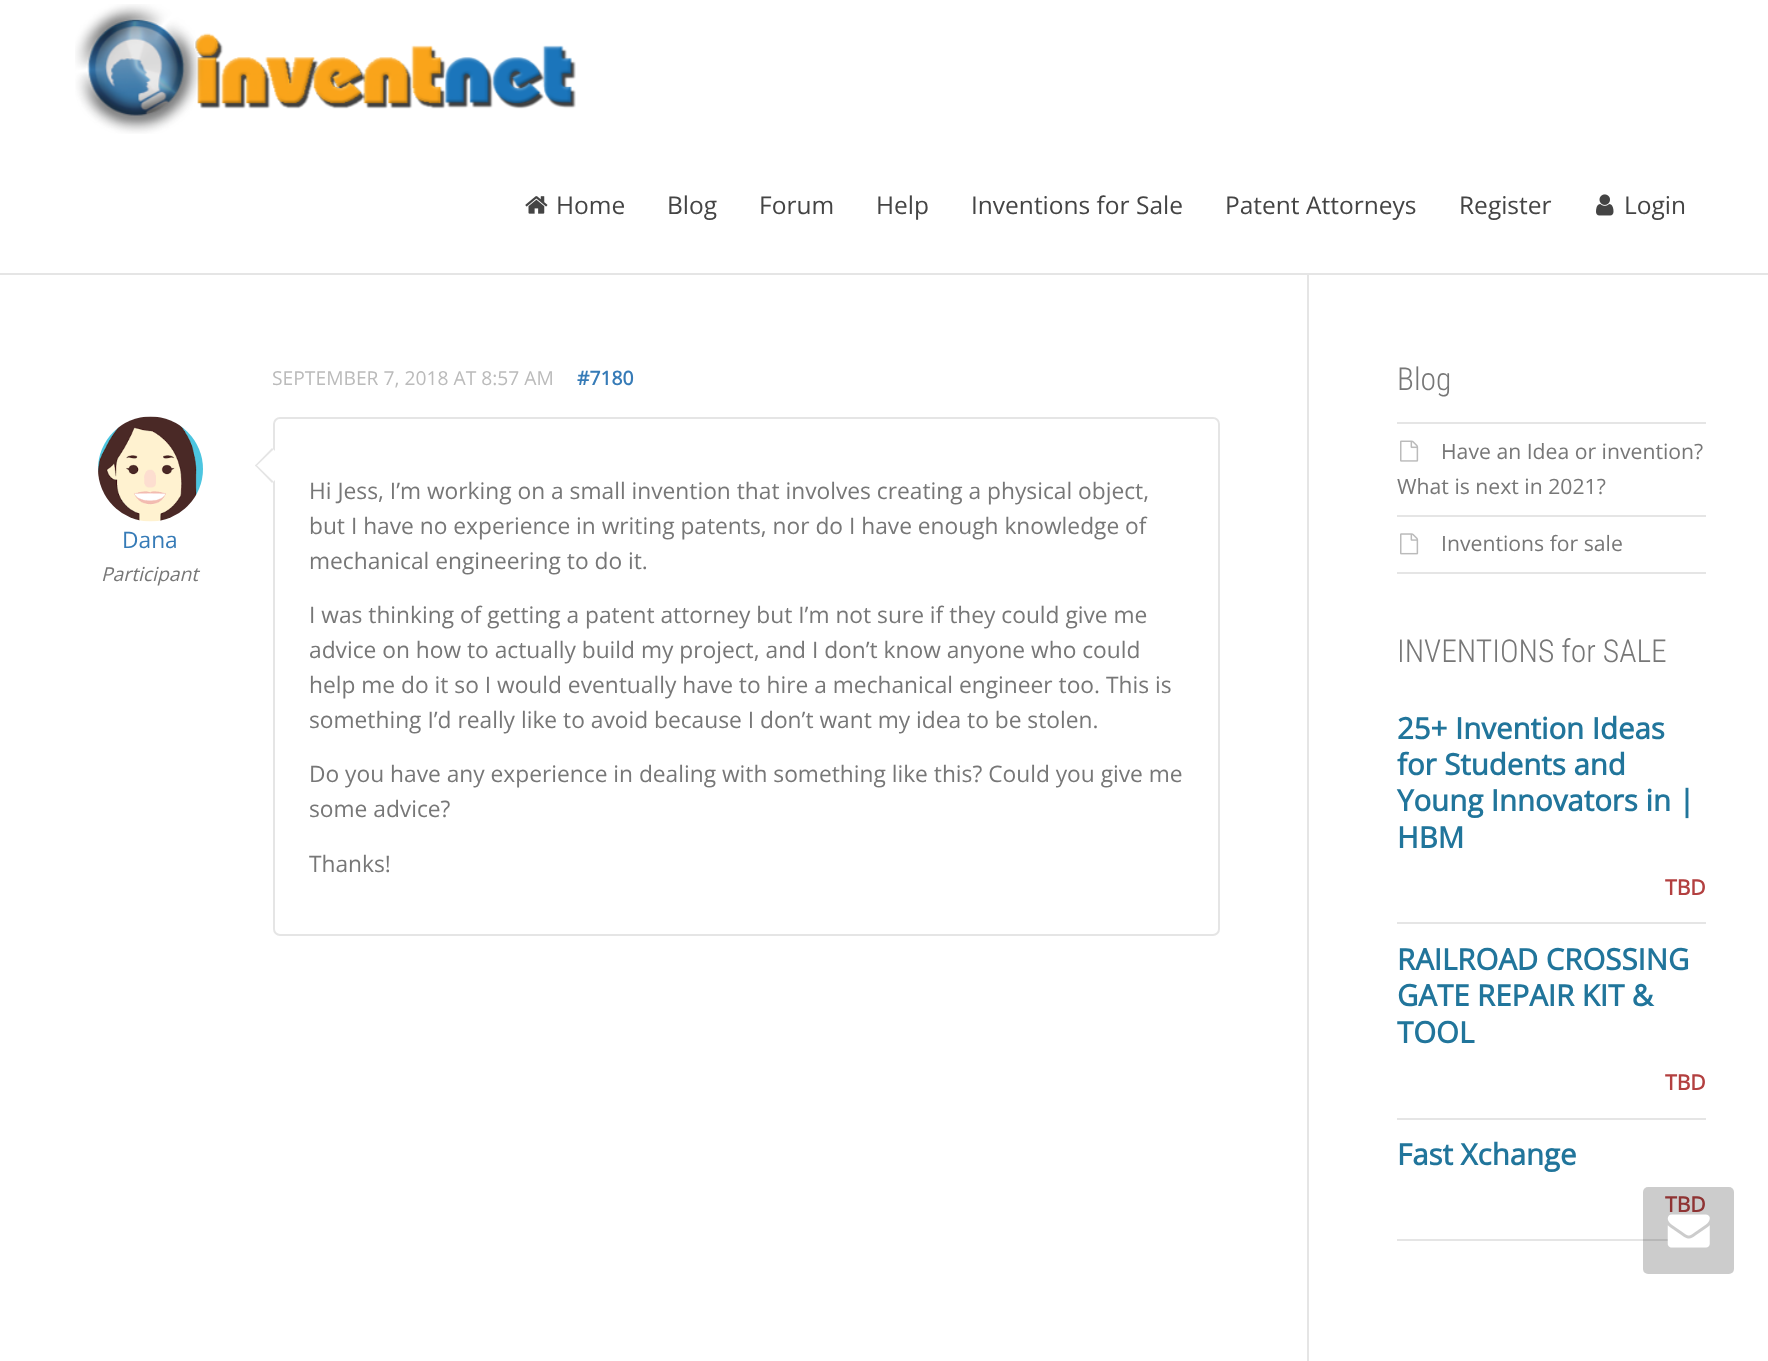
<svg xmlns="http://www.w3.org/2000/svg" width="1768" height="1361">
<rect width="100%" height="100%" fill="#fff"/>
<rect x="1307" y="268" width="2" height="1093" fill="#e5e5e5"/>
<rect x="1307" y="268" width="2" height="5" fill="#fff"/>
<rect y="273" width="1768" height="2" fill="#e5e5e5"/>
<image x="75" y="4" width="501" height="130" href="media/1.png"/>
<image x="525" y="196" width="23" height="18" href="media/2.png"/>
<text x="556" y="214" style="font-family:Open Sans;font-size:24.5px;fill:#444">Home</text>
<text x="667" y="214" style="font-family:Open Sans;font-size:24.5px;fill:#444">Blog</text>
<text x="759" y="214" style="font-family:Open Sans;font-size:24.5px;fill:#444">Forum</text>
<text x="876" y="214" style="font-family:Open Sans;font-size:24.5px;fill:#444">Help</text>
<text x="971" y="214" style="font-family:Open Sans;font-size:24.5px;fill:#444">Inventions for Sale</text>
<text x="1225" y="214" style="font-family:Open Sans;font-size:24.5px;fill:#444">Patent Attorneys</text>
<text x="1459" y="214" style="font-family:Open Sans;font-size:24.5px;fill:#444">Register</text>
<image x="1596" y="194" width="18" height="22" href="media/3.png"/>
<text x="1624" y="214" style="font-family:Open Sans;font-size:24.5px;fill:#444">Login</text>
<text x="272" y="385" style="font-family:Open Sans;font-size:19.25px;fill:#bbb">SEPTEMBER 7, 2018 AT 8:57 AM</text>
<text x="577" y="385" style="font-family:Open Sans;font-size:19.25px;font-weight:bold;fill:#367bb7">#7180</text>
<image x="98" y="416" width="105" height="106" href="media/4.png"/>
<text x="122" y="548" style="font-family:Open Sans;font-size:22.75px;fill:#367bb7">Dana</text>
<text x="101" y="581" style="font-family:Open Sans;font-size:19.25px;font-style:italic;fill:#777">Participant</text>
<rect x="274" y="418" width="945" height="517" rx="6" fill="none" stroke="#e5e5e5" stroke-width="2"/>
<path d="M272 448l17.5 17.5l-17.5 17.5l-17-17.5z" fill="#fff"/>
<path d="M256 464.5l17.5 17l-1.5 1.5l-17-17.5z" fill="#e5e5e5"/>
<path d="M272 448l1.5 1.5l-17.5 17l-1-1z" fill="#e5e5e5"/>
<text x="309" y="499" style="font-family:Open Sans;font-size:22.75px;fill:#777">Hi Jess, I’m working on a small invention that involves creating a physical object,</text>
<text x="309" y="534" style="font-family:Open Sans;font-size:22.75px;fill:#777">but I have no experience in writing patents, nor do I have enough knowledge of</text>
<text x="309" y="569" style="font-family:Open Sans;font-size:22.75px;fill:#777">mechanical engineering to do it.</text>
<text x="309" y="623" style="font-family:Open Sans;font-size:22.75px;fill:#777">I was thinking of getting a patent attorney but I’m not sure if they could give me</text>
<text x="309" y="658" style="font-family:Open Sans;font-size:22.75px;fill:#777">advice on how to actually build my project, and I don’t know anyone who could</text>
<text x="309" y="693" style="font-family:Open Sans;font-size:22.75px;fill:#777">help me do it so I would eventually have to hire a mechanical engineer too. This is</text>
<text x="309" y="728" style="font-family:Open Sans;font-size:22.75px;fill:#777">something I’d really like to avoid because I don’t want my idea to be stolen.</text>
<text x="309" y="782" style="font-family:Open Sans;font-size:22.75px;fill:#777">Do you have any experience in dealing with something like this? Could you give me</text>
<text x="309" y="817" style="font-family:Open Sans;font-size:22.75px;fill:#777">some advice?</text>
<text x="309" y="872" style="font-family:Open Sans;font-size:22.75px;fill:#777">Thanks!</text>
<text x="1397" y="390" style="font-family:Roboto Condensed;font-size:31.5px;font-weight:300;fill:#777">Blog</text>
<rect x="1397" y="422" width="309" height="2" fill="#e5e5e5"/>
<rect x="1397" y="515" width="309" height="2" fill="#e5e5e5"/>
<image x="1400" y="440" width="19" height="22" href="media/5.png"/>
<text x="1441" y="459" style="font-family:Open Sans;font-size:21.2px;fill:#777">Have an Idea or invention?</text>
<text x="1397" y="494" style="font-family:Open Sans;font-size:21.2px;fill:#777">What is next in 2021?</text>
<rect x="1397" y="572" width="309" height="2" fill="#e5e5e5"/>
<image x="1400" y="533" width="19" height="22" href="media/6.png"/>
<text x="1441" y="551" style="font-family:Open Sans;font-size:21.2px;fill:#777">Inventions for sale</text>
<text x="1397" y="662" style="font-family:Roboto Condensed;font-size:31.5px;font-weight:300;fill:#777">INVENTIONS for SALE</text>
<rect x="1397" y="922" width="309" height="2" fill="#e5e5e5"/>
<text x="1397" y="739" style="font-family:Open Sans;font-size:29.4px;font-weight:bold;fill:#21759b">25+ Invention Ideas</text>
<text x="1397" y="775" style="font-family:Open Sans;font-size:29.4px;font-weight:bold;fill:#21759b">for Students and</text>
<text x="1397" y="811" style="font-family:Open Sans;font-size:29.4px;font-weight:bold;fill:#21759b">Young Innovators in |</text>
<text x="1397" y="848" style="font-family:Open Sans;font-size:29.4px;font-weight:bold;fill:#21759b">HBM</text>
<text x="1665" y="895" style="font-family:Open Sans;font-size:21.2px;font-weight:bold;fill:#b34040">TBD</text>
<rect x="1397" y="1118" width="309" height="2" fill="#e5e5e5"/>
<text x="1397" y="970" style="font-family:Open Sans;font-size:29.4px;font-weight:bold;fill:#21759b">RAILROAD CROSSING</text>
<text x="1397" y="1006" style="font-family:Open Sans;font-size:29.4px;font-weight:bold;fill:#21759b">GATE REPAIR KIT &amp;</text>
<text x="1397" y="1043" style="font-family:Open Sans;font-size:29.4px;font-weight:bold;fill:#21759b">TOOL</text>
<text x="1665" y="1090" style="font-family:Open Sans;font-size:21.2px;font-weight:bold;fill:#b34040">TBD</text>
<rect x="1397" y="1239" width="271" height="2" fill="#e5e5e5"/>
<text x="1397" y="1165" style="font-family:Open Sans;font-size:29.4px;font-weight:bold;fill:#21759b">Fast Xchange</text>
<text x="1665" y="1212" style="font-family:Open Sans;font-size:21.2px;font-weight:bold;fill:#b34040">TBD</text>
<rect x="1643" y="1187" width="91" height="87" rx="5" fill="#00000033"/>
<image x="1667" y="1214" width="43" height="34" href="media/7.png"/>
</svg>
